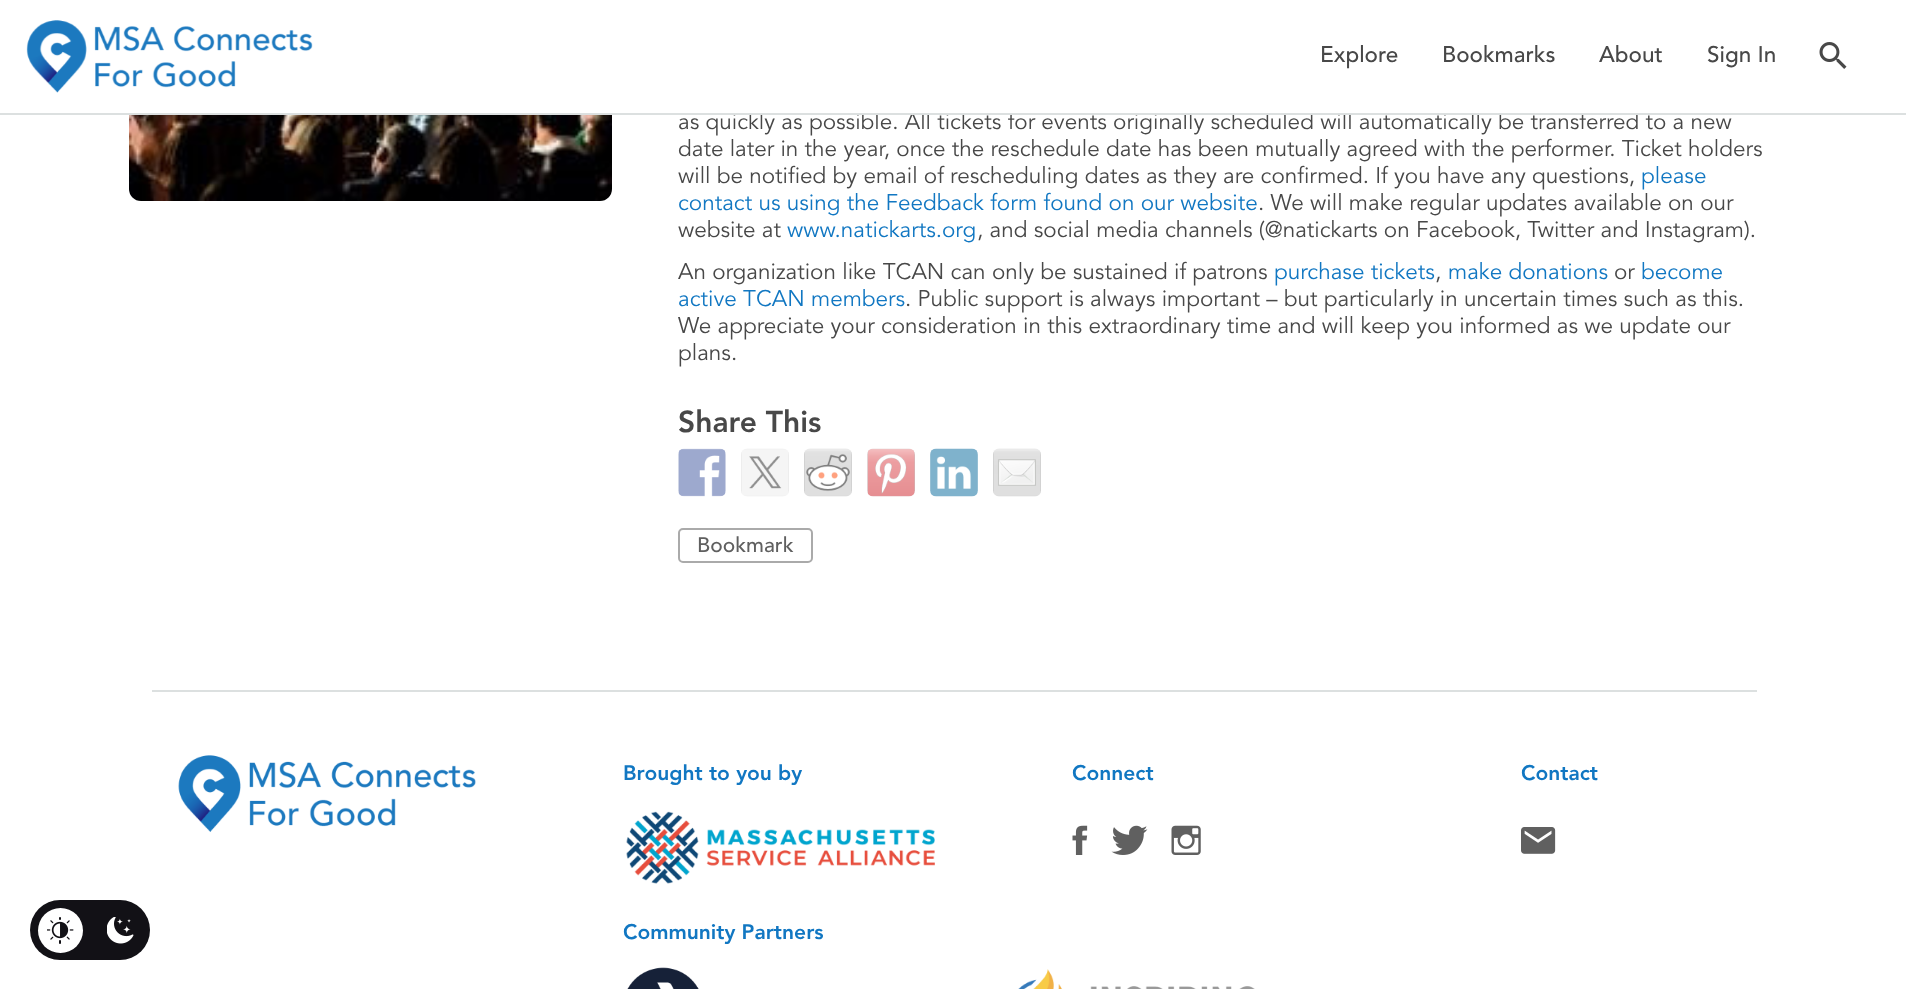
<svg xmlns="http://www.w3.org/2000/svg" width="1906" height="989">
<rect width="100%" height="100%" fill="#fff"/>
<text x="678" y="129" style="font-family:Avenir;font-size:22.5px;fill:#484848">as quickly as possible. All tickets for events originally scheduled will automatically be transferred to a new</text>
<rect x="749" y="111" width="889" height="2" fill="#fff"/>
<rect y="113" width="1906" height="2" fill="#dce0e0"/>
<image x="26" y="20" width="287" height="73" href="media/1.png"/>
<text x="1320" y="62" style="font-family:Avenir;font-size:22.5px;font-weight:500;fill:#484848">Explore</text>
<text x="1442" y="62" style="font-family:Avenir;font-size:22.5px;font-weight:500;fill:#484848">Bookmarks</text>
<text x="1599" y="62" style="font-family:Avenir;font-size:22.5px;font-weight:500;fill:#484848">About</text>
<text x="1707" y="62" style="font-family:Avenir;font-size:22.5px;font-weight:500;fill:#484848">Sign In</text>
<image x="1819" y="42" width="28" height="27" href="media/2.png"/>
<image x="129" y="115" width="483" height="86" href="media/3.png"/>
<text x="678" y="156" style="font-family:Avenir;font-size:22.5px;fill:#484848">date later in the year, once the reschedule date has been mutually agreed with the performer. Ticket holders</text>
<text x="678" y="183" style="font-family:Avenir;font-size:22.5px;fill:#484848">will be notified by email of rescheduling dates as they are confirmed. If you have any questions,</text>
<text x="1641" y="183" style="font-family:Avenir;font-size:22.5px;fill:#1177c2">please</text>
<text x="678" y="210" style="font-family:Avenir;font-size:22.5px;fill:#1177c2">contact us using the Feedback form found on our website</text>
<text x="1258" y="210" style="font-family:Avenir;font-size:22.5px;fill:#484848">. We will make regular updates available on our</text>
<text x="678" y="237" style="font-family:Avenir;font-size:22.5px;fill:#484848">website at</text>
<text x="787" y="237" style="font-family:Avenir;font-size:22.5px;fill:#1177c2">www.natickarts.org</text>
<text x="977" y="237" style="font-family:Avenir;font-size:22.5px;fill:#484848">, and social media channels (@natickarts on Facebook, Twitter and Instagram).</text>
<text x="678" y="279" style="font-family:Avenir;font-size:22.5px;fill:#484848">An organization like TCAN can only be sustained if patrons</text>
<text x="1274" y="279" style="font-family:Avenir;font-size:22.5px;fill:#1177c2">purchase tickets</text>
<text x="1435" y="279" style="font-family:Avenir;font-size:22.5px;fill:#484848">,</text>
<text x="1448" y="279" style="font-family:Avenir;font-size:22.5px;fill:#1177c2">make donations</text>
<text x="1614" y="279" style="font-family:Avenir;font-size:22.5px;fill:#484848">or</text>
<text x="1641" y="279" style="font-family:Avenir;font-size:22.5px;fill:#1177c2">become</text>
<text x="678" y="306" style="font-family:Avenir;font-size:22.5px;fill:#1177c2">active TCAN members</text>
<text x="905" y="306" style="font-family:Avenir;font-size:22.5px;fill:#484848">. Public support is always important – but particularly in uncertain times such as this.</text>
<text x="678" y="333" style="font-family:Avenir;font-size:22.5px;fill:#484848">We appreciate your consideration in this extraordinary time and will keep you informed as we update our</text>
<text x="678" y="360" style="font-family:Avenir;font-size:22.5px;fill:#484848">plans.</text>
<text x="678" y="432" style="font-family:Avenir;font-size:30px;font-weight:900;fill:#484848">Share This</text>
<image x="678" y="448" width="48" height="49" href="media/4.png"/>
<image x="741" y="448" width="48" height="49" href="media/5.png"/>
<image x="804" y="448" width="48" height="49" href="media/6.png"/>
<image x="867" y="448" width="48" height="49" href="media/7.png"/>
<image x="930" y="448" width="48" height="49" href="media/8.png"/>
<image x="993" y="448" width="48" height="49" href="media/9.png"/>
<rect x="679" y="529" width="133" height="33" rx="4" fill="none" stroke="#aaa" stroke-width="2"/>
<text x="697" y="552" style="font-family:Avenir;font-size:21px;font-weight:500;fill:#606060">Bookmark</text>
<rect x="30" y="900" width="120" height="60" rx="30" fill="#121116"/>
<circle cx="60.5" cy="930.5" r="22.5" fill="#fff"/>
<image x="47" y="917" width="27" height="27" href="media/10.png"/>
<image x="107" y="917" width="27" height="27" href="media/11.png"/>
<rect x="152" y="690" width="1605" height="2" fill="#dce0e0"/>
<image x="178" y="755" width="298" height="77" href="media/12.png"/>
<text x="623" y="780" style="font-family:Avenir;font-size:21px;font-weight:900;fill:#1177c2">Brought to you by</text>
<image x="626" y="811" width="309" height="73" href="media/13.png"/>
<text x="1072" y="780" style="font-family:Avenir;font-size:21px;font-weight:900;fill:#1177c2">Connect</text>
<image x="1072" y="825" width="16" height="30" href="media/14.png"/>
<image x="1111" y="825" width="37" height="30" href="media/15.png"/>
<image x="1171" y="825" width="30" height="30" href="media/16.png"/>
<text x="1521" y="780" style="font-family:Avenir;font-size:21px;font-weight:900;fill:#1177c2">Contact</text>
<image x="1521" y="827" width="35" height="27" href="media/17.png"/>
<text x="623" y="939" style="font-family:Avenir;font-size:21px;font-weight:900;fill:#1177c2">Community Partners</text>
<image x="627" y="967" width="72" height="22" href="media/18.png"/>
<image x="1018" y="969" width="237" height="20" href="media/19.png"/>
</svg>
